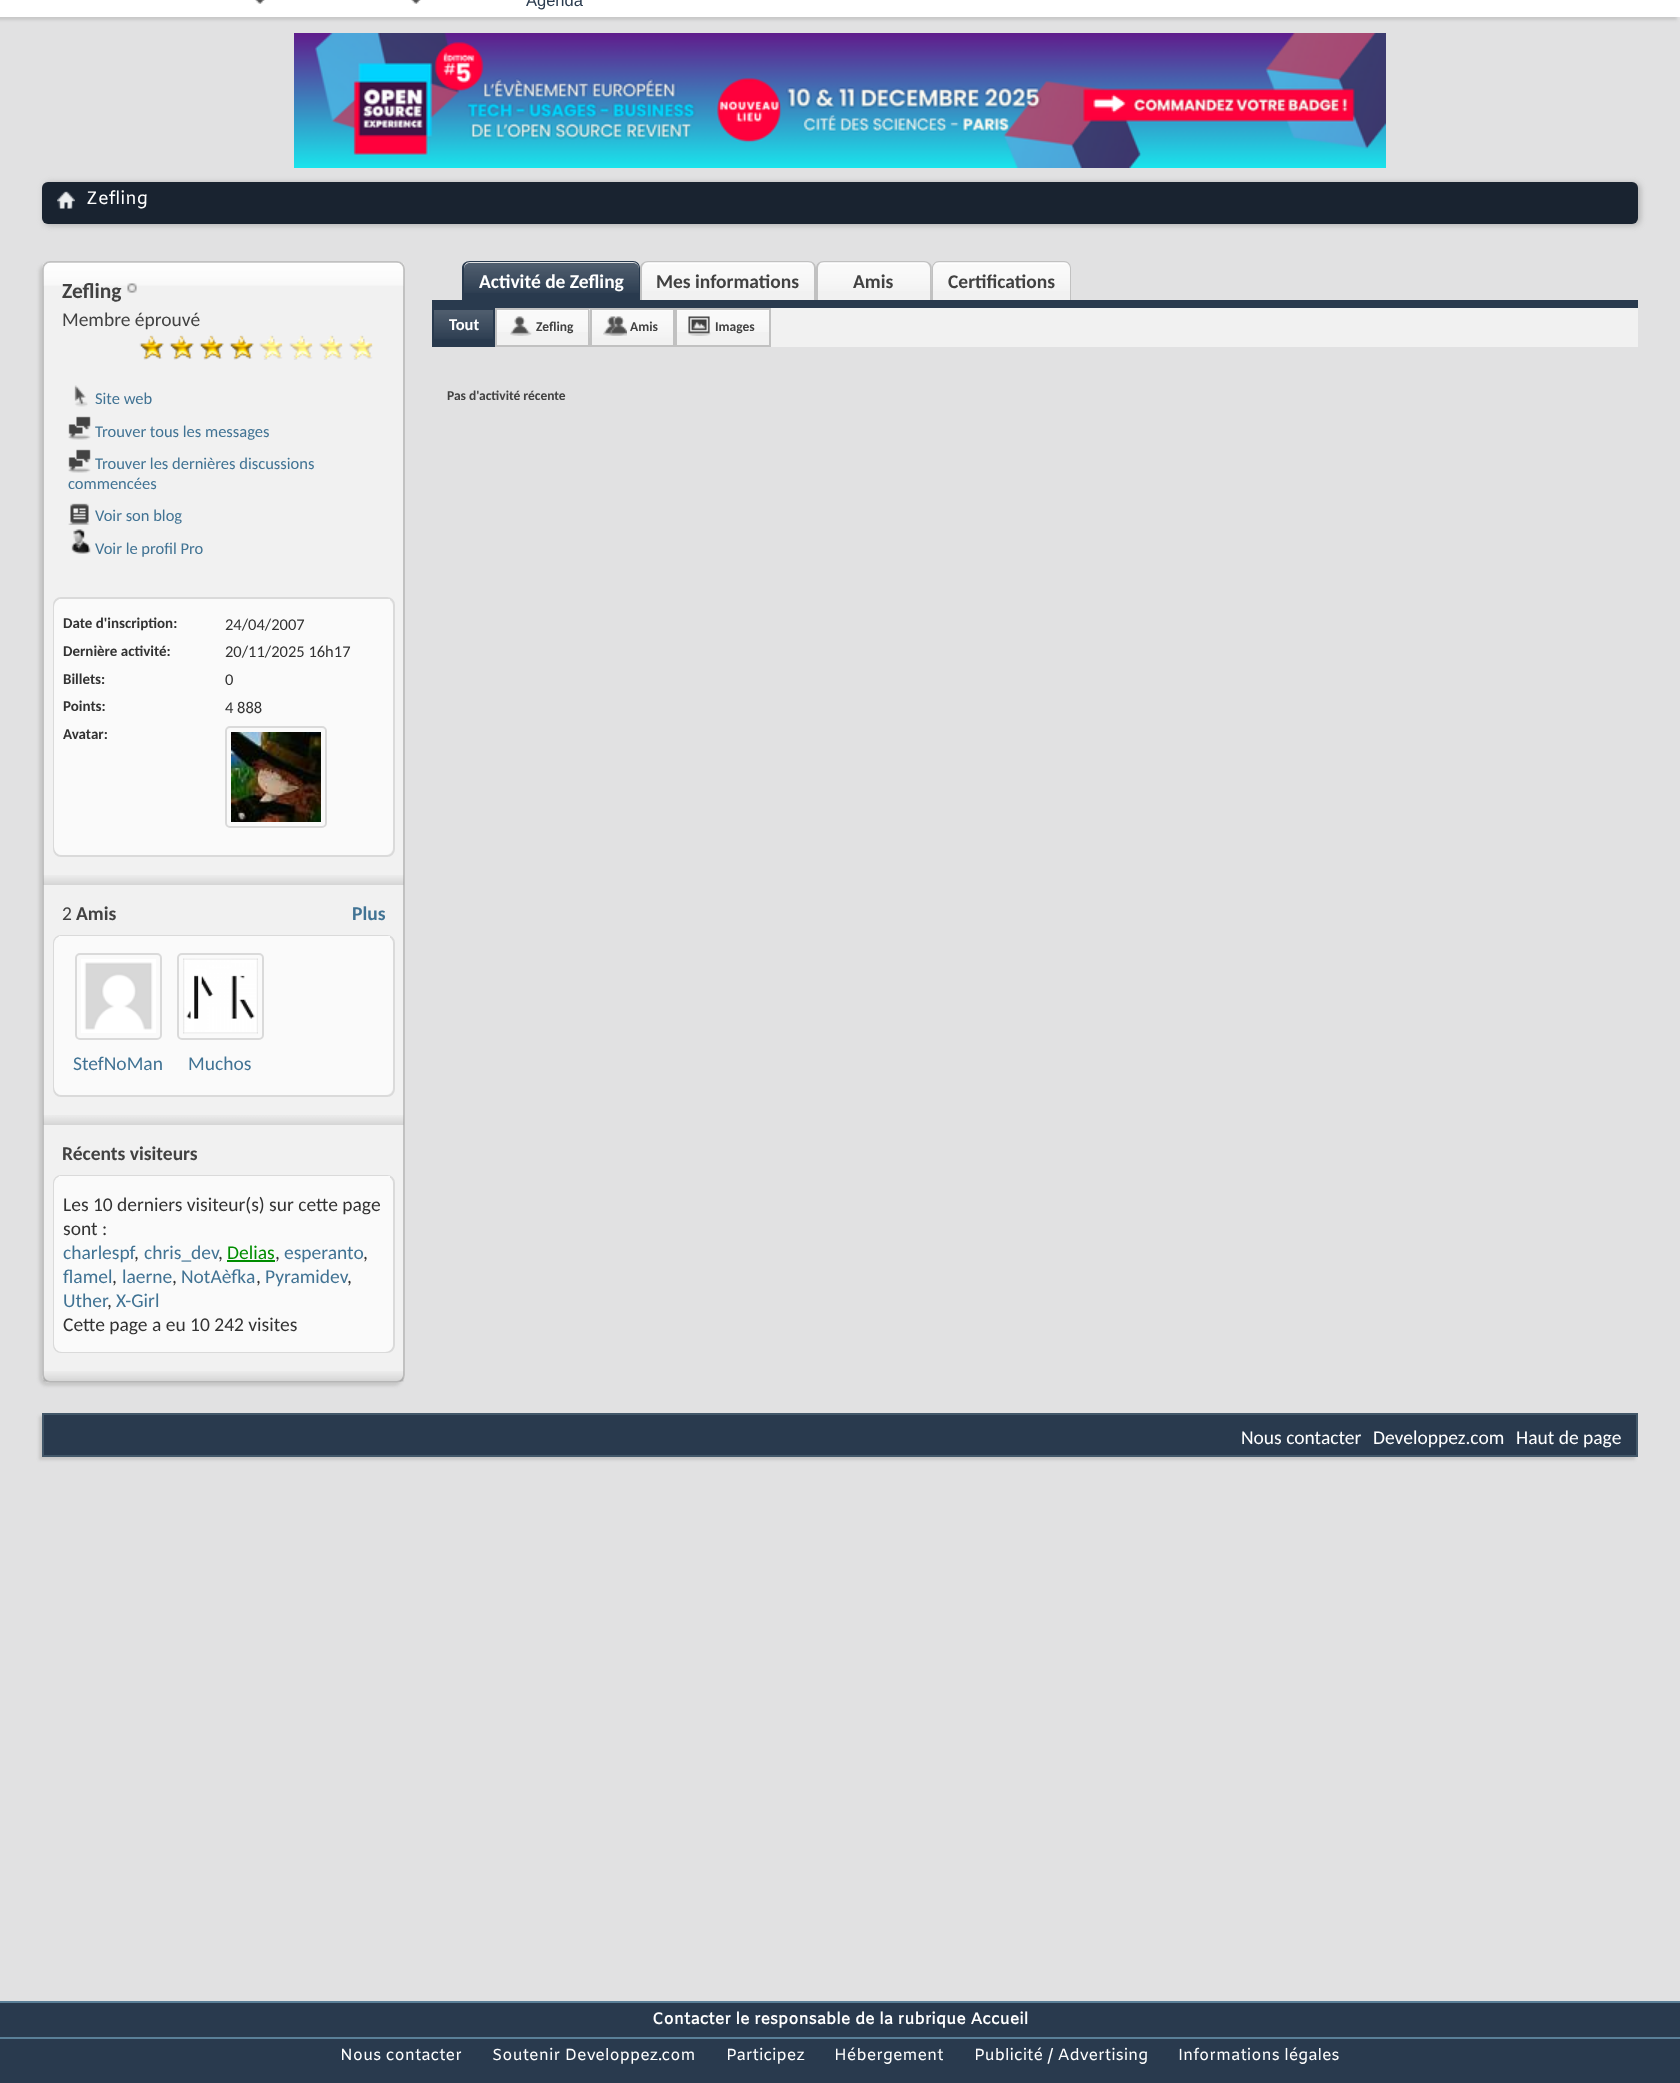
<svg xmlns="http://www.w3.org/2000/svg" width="1680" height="2083">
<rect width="100%" height="100%" fill="#293a4e"/>
<rect y="17" width="1680" height="1984" fill="#e1e1e2"/>
<rect x="-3" y="-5" width="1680" height="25" fill="#c8c8c8" filter="blur(1.5px)"/>
<rect width="1680" height="17" fill="#fff"/>
<image x="255" y="0" width="10" height="4" href="media/1.png"/>
<image x="411" y="0" width="10" height="4" href="media/2.png"/>
<text x="526" y="6" style="font-family:Liberation Sans;font-size:16.5px;fill:#293a4e">Agenda</text>
<rect x="44" y="183" width="1596" height="42" rx="6" fill="#adadad" filter="blur(3px)"/>
<rect x="42" y="182" width="1596" height="42" rx="6" fill="#192330"/>
<image x="57" y="191" width="18" height="18" href="media/3.png"/>
<text x="86" y="204" style="font-family:Amiko;font-size:18px;fill:#fff">Zefling</text>
<rect x="39" y="264" width="363" height="1122" rx="8" fill="#c8c8c8" filter="blur(1.5px)"/>
<rect x="42" y="261" width="363" height="1122" rx="8" fill="#f1f1f1"/>
<image x="42" y="262" width="363" height="23" href="media/4.png"/>
<rect x="43" y="262" width="361" height="1120" rx="7" fill="none" stroke="#c1c1c1" stroke-width="2"/>
<image x="43" y="262" width="361" height="24" href="media/5.png"/>
<text x="62" y="298" style="font-family:Carlito;font-size:21.5px;font-weight:bold;fill:#424242">Zefling</text>
<image x="127" y="283" width="10" height="10" href="media/6.png"/>
<text x="62" y="326" style="font-family:Carlito;font-size:19.5px;fill:#424242">Membre éprouvé</text>
<image x="139" y="335" width="25" height="25" href="media/7.png"/>
<image x="169" y="335" width="25" height="25" href="media/7.png"/>
<image x="199" y="335" width="25" height="25" href="media/7.png"/>
<image x="229" y="335" width="25" height="25" href="media/7.png"/>
<image x="259" y="335" width="24" height="25" href="media/8.png"/>
<image x="289" y="335" width="24" height="25" href="media/9.png"/>
<image x="319" y="335" width="24" height="25" href="media/8.png"/>
<image x="349" y="335" width="24" height="25" href="media/8.png"/>
<image x="74" y="385" width="14" height="22" href="media/10.png"/>
<text x="95" y="404" style="font-family:Carlito;font-size:16.5px;fill:#417394">Site web</text>
<image x="68" y="416" width="23" height="24" href="media/11.png"/>
<text x="95" y="437" style="font-family:Carlito;font-size:16.5px;fill:#417394">Trouver tous les messages</text>
<image x="68" y="449" width="23" height="24" href="media/11.png"/>
<text x="95" y="469" style="font-family:Carlito;font-size:16.5px;fill:#417394">Trouver les dernières discussions</text>
<text x="68" y="489" style="font-family:Carlito;font-size:16.5px;fill:#417394">commencées</text>
<image x="68" y="503" width="22" height="22" href="media/12.png"/>
<text x="95" y="521" style="font-family:Carlito;font-size:16.5px;fill:#417394">Voir son blog</text>
<image x="71" y="529" width="20" height="25" href="media/13.png"/>
<text x="95" y="554" style="font-family:Carlito;font-size:16.5px;fill:#417394">Voir le profil Pro</text>
<rect x="54" y="598" width="340" height="258" rx="7" fill="none" stroke="#dadada" stroke-width="2"/>
<rect x="54" y="599" width="339" height="256" rx="8" fill="#fafafa"/>
<rect x="59" y="599" width="331" height="2" fill="#fafafa"/>
<text x="63" y="628" style="font-family:Carlito;font-size:15px;font-weight:bold;fill:#333">Date d'inscription:</text>
<text x="225" y="630" style="font-family:Carlito;font-size:16.5px;fill:#333">24/04/2007</text>
<text x="63" y="656" style="font-family:Carlito;font-size:15px;font-weight:bold;fill:#333">Dernière activité:</text>
<text x="225" y="657" style="font-family:Carlito;font-size:16.5px;fill:#333">20/11/2025 16h17</text>
<text x="63" y="684" style="font-family:Carlito;font-size:15px;font-weight:bold;fill:#333">Billets:</text>
<text x="225" y="685" style="font-family:Carlito;font-size:16.5px;fill:#333">0</text>
<text x="63" y="711" style="font-family:Carlito;font-size:15px;font-weight:bold;fill:#333">Points:</text>
<text x="225" y="713" style="font-family:Carlito;font-size:16.5px;fill:#333">4 888</text>
<text x="63" y="739" style="font-family:Carlito;font-size:15px;font-weight:bold;fill:#333">Avatar:</text>
<rect x="226" y="727" width="100" height="100" rx="4" fill="none" stroke="#dadada" stroke-width="2"/>
<image x="231" y="732" width="90" height="90" href="media/14.png"/>
<image x="43" y="875" width="361" height="10" href="media/15.png"/>
<text x="62" y="920" style="font-family:Carlito;font-size:19.5px;fill:#424242">2</text>
<text x="76" y="920" style="font-family:Carlito;font-size:19.5px;font-weight:bold;fill:#424242">Amis</text>
<text x="352" y="920" style="font-family:Carlito;font-size:19.5px;font-weight:bold;fill:#417394">Plus</text>
<rect x="54" y="936" width="340" height="160" rx="7" fill="none" stroke="#dadada" stroke-width="2"/>
<rect x="54" y="936" width="339" height="159" rx="8" fill="#fafafa"/>
<rect x="59" y="936" width="331" height="2" fill="#fafafa"/>
<rect x="76" y="954" width="85" height="85" rx="4" fill="none" stroke="#dadada" stroke-width="2"/>
<image x="81" y="959" width="75" height="74" href="media/16.png"/>
<text x="73" y="1070" style="font-family:Carlito;font-size:19.5px;fill:#417394">StefNoMan</text>
<rect x="178" y="954" width="85" height="85" rx="4" fill="none" stroke="#dadada" stroke-width="2"/>
<image x="183" y="958" width="75" height="76" href="media/17.png"/>
<text x="188" y="1070" style="font-family:Carlito;font-size:19.5px;fill:#417394">Muchos</text>
<image x="43" y="1115" width="361" height="10" href="media/18.png"/>
<text x="62" y="1160" style="font-family:Carlito;font-size:19.5px;font-weight:bold;fill:#424242">Récents visiteurs</text>
<rect x="54" y="1176" width="340" height="176" rx="7" fill="none" stroke="#dadada" stroke-width="2"/>
<rect x="54" y="1176" width="339" height="176" rx="8" fill="#fafafa"/>
<rect x="59" y="1176" width="331" height="2" fill="#fafafa"/>
<text x="63" y="1211" style="font-family:Carlito;font-size:19.5px;fill:#333">Les 10 derniers visiteur(s) sur cette page</text>
<text x="63" y="1235" style="font-family:Carlito;font-size:19.5px;fill:#333">sont :</text>
<text x="63" y="1259" style="font-family:Carlito;font-size:19.5px;fill:#417394">charlespf</text>
<text x="134" y="1259" style="font-family:Carlito;font-size:19.5px;fill:#333">,</text>
<text x="144" y="1259" style="font-family:Carlito;font-size:19.5px;fill:#417394">chris_dev</text>
<text x="218" y="1259" style="font-family:Carlito;font-size:19.5px;fill:#333">,</text>
<text x="227" y="1259" style="font-family:Carlito;font-size:19.5px;fill:#008d00">Delias</text>
<rect x="227" y="1260" width="48" height="2" fill="#008d00"/>
<text x="275" y="1259" style="font-family:Carlito;font-size:19.5px;fill:#333">,</text>
<text x="284" y="1259" style="font-family:Carlito;font-size:19.5px;fill:#417394">esperanto</text>
<text x="363" y="1259" style="font-family:Carlito;font-size:19.5px;fill:#333">,</text>
<text x="63" y="1283" style="font-family:Carlito;font-size:19.5px;fill:#417394">flamel</text>
<text x="112" y="1283" style="font-family:Carlito;font-size:19.5px;fill:#333">,</text>
<text x="122" y="1283" style="font-family:Carlito;font-size:19.5px;fill:#417394">laerne</text>
<text x="172" y="1283" style="font-family:Carlito;font-size:19.5px;fill:#333">,</text>
<text x="181" y="1283" style="font-family:Carlito;font-size:19.5px;fill:#417394">NotAèfka</text>
<text x="256" y="1283" style="font-family:Carlito;font-size:19.5px;fill:#333">,</text>
<text x="265" y="1283" style="font-family:Carlito;font-size:19.5px;fill:#417394">Pyramidev</text>
<text x="347" y="1283" style="font-family:Carlito;font-size:19.5px;fill:#333">,</text>
<text x="63" y="1307" style="font-family:Carlito;font-size:19.5px;fill:#417394">Uther</text>
<text x="107" y="1307" style="font-family:Carlito;font-size:19.5px;fill:#333">,</text>
<text x="116" y="1307" style="font-family:Carlito;font-size:19.5px;fill:#417394">X-Girl</text>
<text x="63" y="1331" style="font-family:Carlito;font-size:19.5px;fill:#333">Cette page a eu 10 242 visites</text>
<image x="43" y="1371" width="361" height="11" href="media/19.png"/>
<path d="M470 263h163c3.5 0 6 2.5 6 6v31h-175v-31c0-3.5 2.5-6 6-6z" fill="#293a4e"/>
<image x="462" y="263" width="178" height="30" href="media/20.png"/>
<path d="M470 261h163c4 0 7 3 7 7v32h-178v-32c0-4 3-7 8-7zm0 1h163c3 0 6 3 6 6v32h-175v-32c0-3 2-6 6-6z" fill="#293a4e" fill-rule="evenodd"/>
<text x="479" y="288" style="font-family:Carlito;font-size:19.5px;font-weight:bold;fill:#fff">Activité de Zefling</text>
<path d="M648 263h161c3.5 0 6 2.5 6 6v31h-173v-31c0-3.5 2.5-6 6-6z" fill="#f1f1f1"/>
<image x="640" y="262" width="176" height="29" href="media/21.png"/>
<path d="M648 261h160c5 0 8 3 8 7v32h-176v-32c0-4 4-7 8-7zm0 1h160c4 0 6 3 6 6v32h-172v-32c0-3 3-6 6-6z" fill="#c1c1c1" fill-rule="evenodd"/>
<text x="656" y="288" style="font-family:Carlito;font-size:19.5px;font-weight:bold;fill:#424242">Mes informations</text>
<path d="M824 263h100c3.5 0 6 2.5 6 6v31h-112v-31c0-3.5 2.5-6 6-6z" fill="#f1f1f1"/>
<image x="816" y="262" width="116" height="29" href="media/22.png"/>
<path d="M824 261h100c4 0 8 3 8 7v32h-116v-32c0-4 3-7 8-7zm0 1h100c3 0 6 3 6 6v32h-112v-32c0-3 2-6 6-6z" fill="#c1c1c1" fill-rule="evenodd"/>
<text x="853" y="288" style="font-family:Carlito;font-size:19.5px;font-weight:bold;fill:#424242">Amis</text>
<path d="M939 263h125c3.5 0 6 2.5 6 6v31h-137v-31c0-3.5 2.5-6 6-6z" fill="#f1f1f1"/>
<image x="931" y="262" width="140" height="29" href="media/23.png"/>
<path d="M939 261h125c4 0 7 3 7 7v32h-139v-32c0-4 3-7 7-7zm0 1h125c3 0 6 3 6 6v32h-137v-32c0-3 3-6 6-6z" fill="#c1c1c1" fill-rule="evenodd"/>
<text x="948" y="288" style="font-family:Carlito;font-size:19.5px;font-weight:bold;fill:#424242">Certifications</text>
<rect x="432" y="300" width="1206" height="8" fill="#293a4e"/>
<rect x="497" y="308" width="1141" height="39" fill="#f1f1f1"/>
<rect x="434" y="310" width="59" height="35" fill="#293a4e"/>
<image x="434" y="310" width="59" height="29" href="media/24.png"/>
<rect x="433" y="309" width="61" height="37" fill="none" stroke="#293a4e" stroke-width="2"/>
<text x="449" y="330" style="font-family:Carlito;font-size:16.5px;font-weight:bold;fill:#fff">Tout</text>
<image x="497" y="310" width="91" height="22" href="media/25.png"/>
<rect x="496" y="309" width="93" height="37" fill="none" stroke="#c1c1c1" stroke-width="2"/>
<image x="510" y="316" width="22" height="20" href="media/26.png"/>
<text x="536" y="331" style="font-family:Carlito;font-size:13.5px;font-weight:bold;fill:#424242">Zefling</text>
<image x="589" y="309" width="84" height="29" href="media/27.png"/>
<rect x="591" y="309" width="83" height="37" fill="none" stroke="#c1c1c1" stroke-width="2"/>
<image x="603" y="316" width="24" height="20" href="media/28.png"/>
<text x="630" y="331" style="font-family:Carlito;font-size:13.5px;font-weight:bold;fill:#424242">Amis</text>
<image x="677" y="310" width="92" height="22" href="media/29.png"/>
<rect x="676" y="309" width="94" height="37" fill="none" stroke="#c1c1c1" stroke-width="2"/>
<image x="688" y="316" width="23" height="20" href="media/30.png"/>
<text x="715" y="331" style="font-family:Carlito;font-size:13.5px;font-weight:bold;fill:#424242">Images</text>
<text x="447" y="400" style="font-family:Carlito;font-size:13.5px;font-weight:bold;fill:#424242">Pas d'activité récente</text>
<rect x="39" y="1416" width="1596" height="44" fill="#c8c8c8" filter="blur(1.5px)"/>
<rect x="43" y="1414" width="1594" height="42" fill="#293a4e" stroke="#425769" stroke-width="2"/>
<text x="1241" y="1444" style="font-family:Carlito;font-size:19.5px;fill:#fff">Nous contacter</text>
<text x="1373" y="1444" style="font-family:Carlito;font-size:19.5px;fill:#fff">Developpez.com</text>
<text x="1516" y="1444" style="font-family:Carlito;font-size:19.5px;fill:#fff">Haut de page</text>
<image x="294" y="33" width="1092" height="135" href="media/31.png"/>
<rect y="2001" width="1680" height="2" fill="#5a7f97"/>
<rect y="2037" width="1680" height="2" fill="#5a7f97"/>
<text x="652" y="2024" style="font-family:Amiko;font-size:16px;font-weight:bold;fill:#fff">Contacter le responsable de la rubrique Accueil</text>
<text x="340" y="2060" style="font-family:Amiko;font-size:16px;fill:#fff">Nous contacter</text>
<text x="492" y="2060" style="font-family:Amiko;font-size:16px;fill:#fff">Soutenir Developpez.com</text>
<text x="726" y="2060" style="font-family:Amiko;font-size:16px;fill:#fff">Participez</text>
<text x="834" y="2060" style="font-family:Amiko;font-size:16px;fill:#fff">Hébergement</text>
<text x="974" y="2060" style="font-family:Amiko;font-size:16px;fill:#fff">Publicité / Advertising</text>
<text x="1178" y="2060" style="font-family:Amiko;font-size:16px;fill:#fff">Informations légales</text>
</svg>
